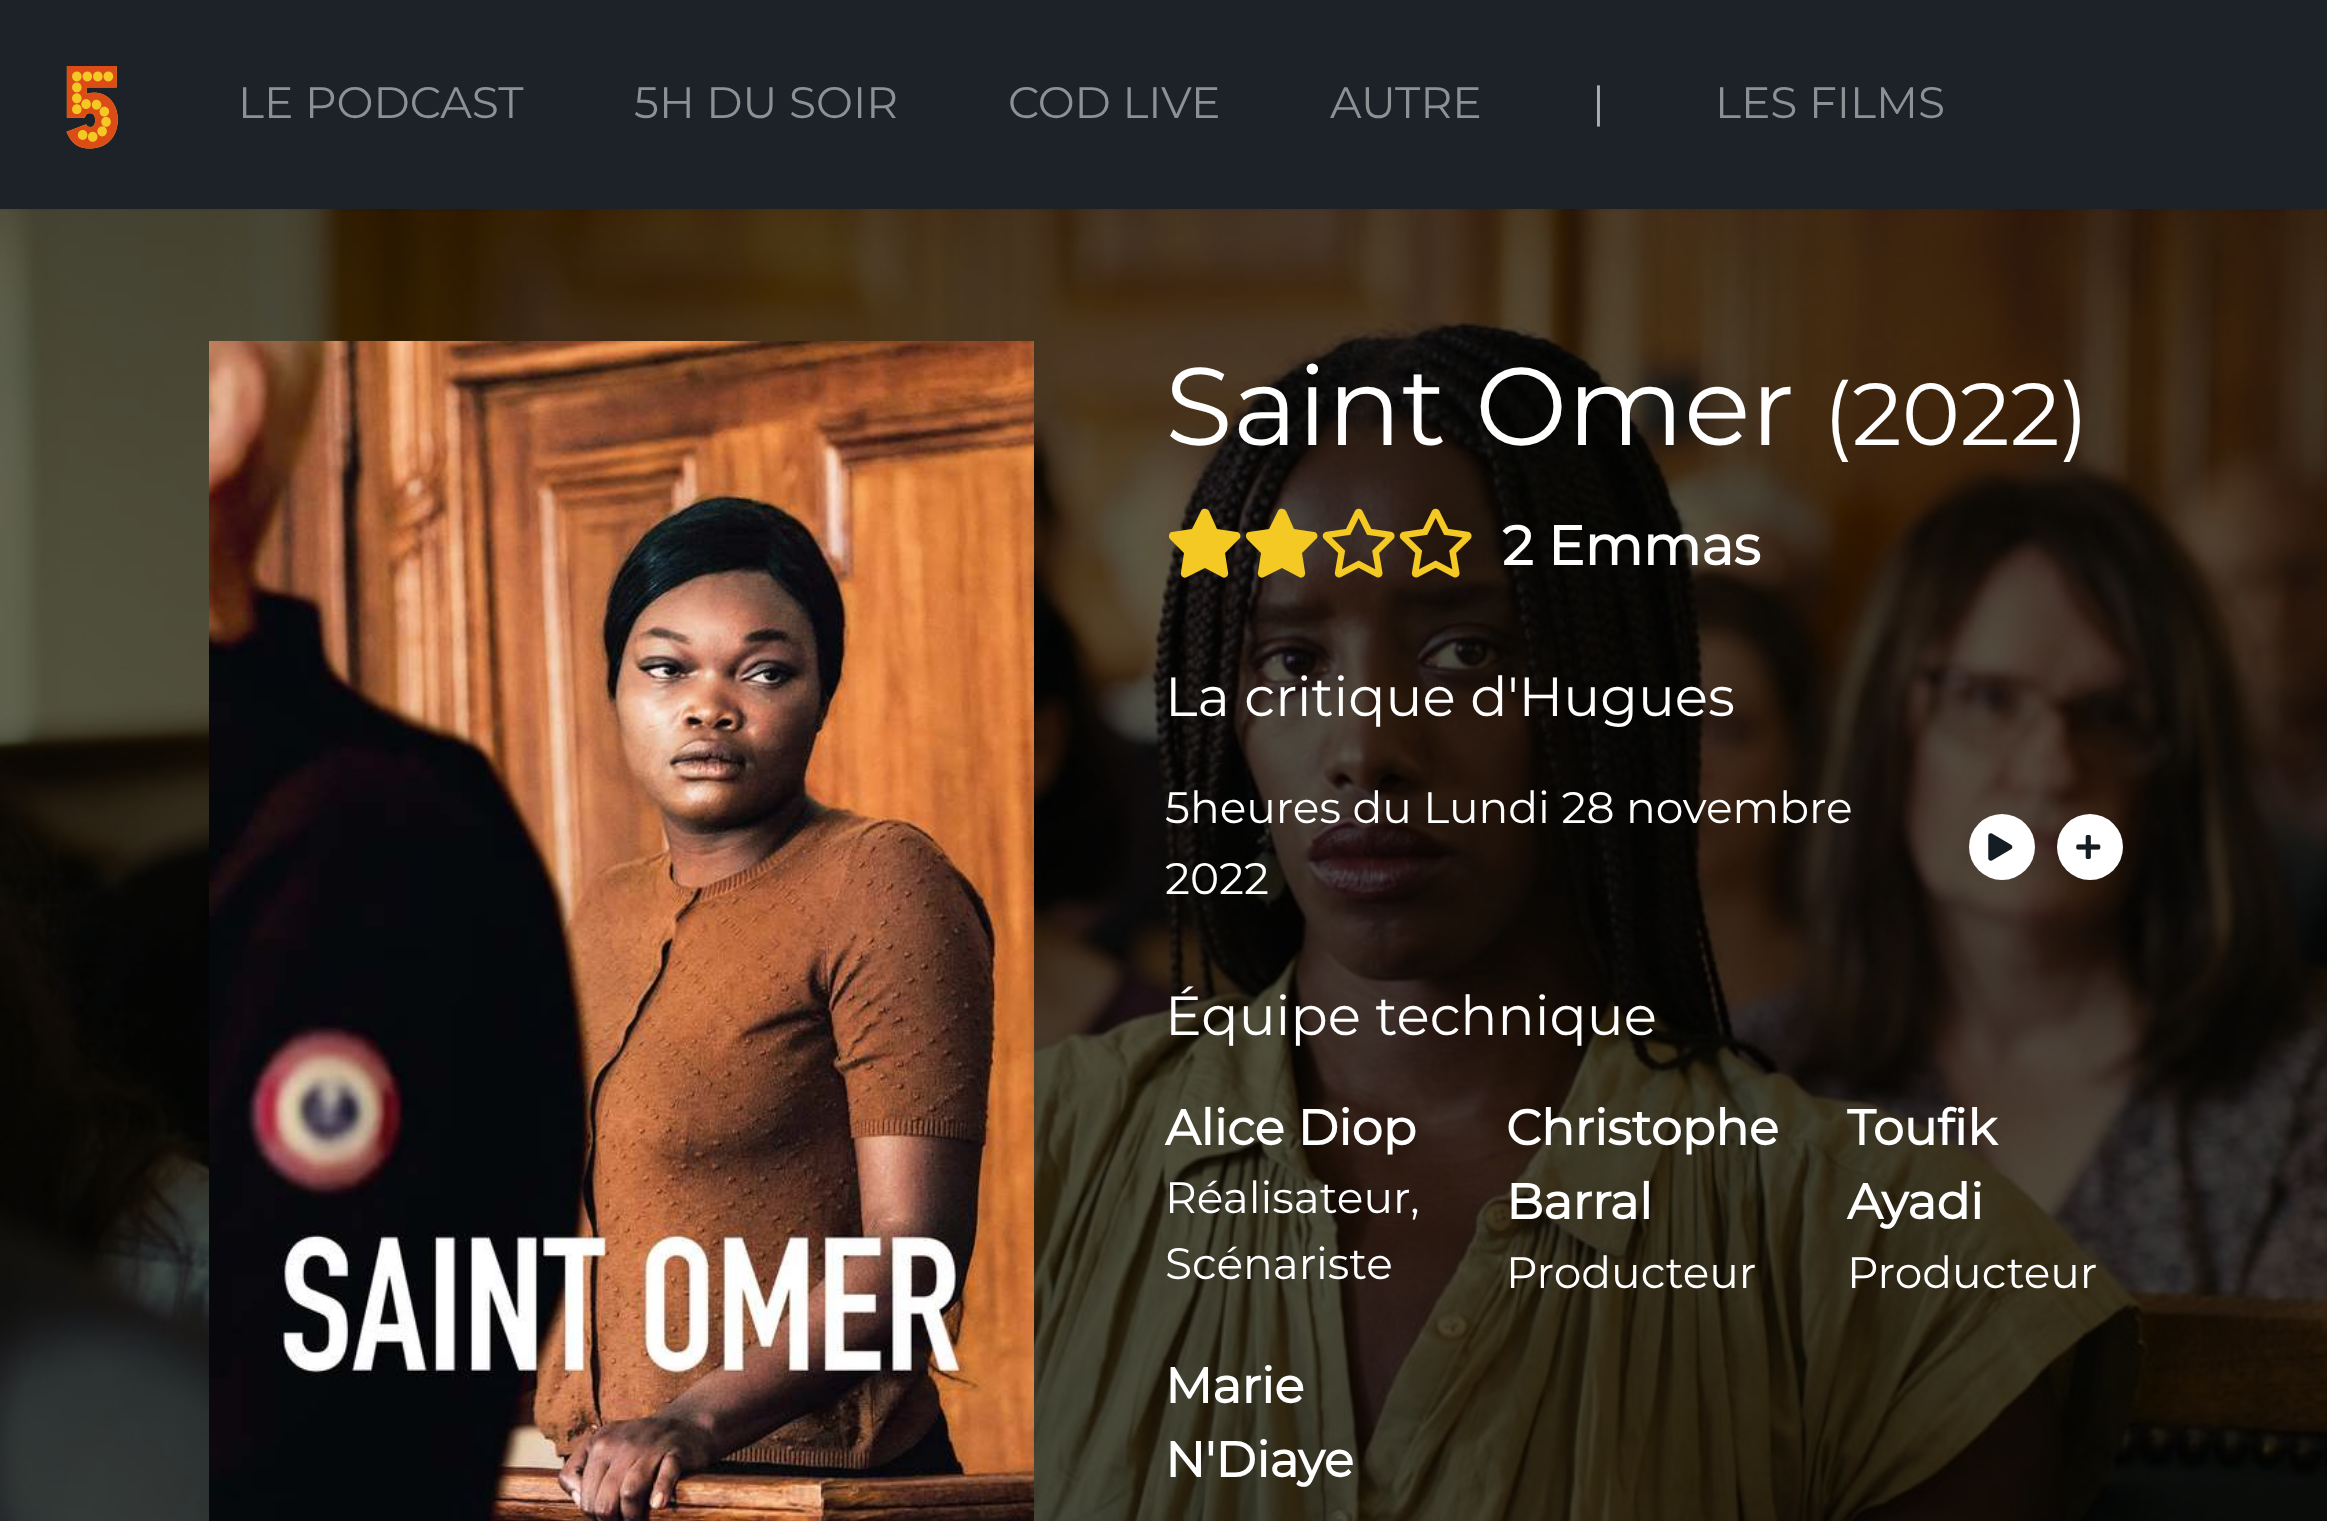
<svg xmlns="http://www.w3.org/2000/svg" width="2327" height="1521">
<rect width="100%" height="100%" fill="#1d2229"/>
<image x="66" y="66" width="52" height="83" href="media/1.png"/>
<text x="238" y="118" style="font-family:Montserrat;font-size:44px;font-weight:100;fill:#8e9194">LE PODCAST</text>
<text x="634" y="118" style="font-family:Montserrat;font-size:44px;font-weight:100;fill:#8e9194">5H DU SOIR</text>
<text x="1008" y="118" style="font-family:Montserrat;font-size:44px;font-weight:100;fill:#8e9194">COD LIVE</text>
<text x="1330" y="118" style="font-family:Montserrat;font-size:44px;font-weight:100;fill:#8e9194">AUTRE</text>
<text x="1592" y="118" style="font-family:Montserrat;font-size:44px;font-weight:100;fill:#acadb4">|</text>
<text x="1715" y="118" style="font-family:Montserrat;font-size:44px;font-weight:100;fill:#8e9194">LES FILMS</text>
<image x="0" y="209" width="2327" height="1312" href="media/2.png"/>
<image x="209" y="341" width="825" height="1180" href="media/3.png"/>
<text x="1165" y="445" style="font-family:Montserrat;font-size:110px;font-weight:100;fill:#fff">Saint Omer</text>
<text x="1823" y="445" style="font-family:Montserrat;font-size:88px;font-weight:100;fill:#fff">(2022)</text>
<path d="M1201 511l-9 18l-20 3c-3 0-4 5-2 7l14 14l-3 19c-1 4 3 7 6 5l18-9l17 9c3 2 7-1 6-5l-3-19l14-14c3-2 1-7-2-7l-20-3l-8-18c-2-3-7-3-8 0z" fill="#f5c924"/>
<path d="M1278 511l-9 18l-20 3c-3 0-4 5-2 7l14 14l-3 19c-1 4 3 7 6 5l18-9l17 9c3 2 7-1 6-5l-3-19l14-14c3-2 1-7-2-7l-20-3l-8-18c-2-3-7-3-8 0z" fill="#f5c924"/>
<image x="1322" y="508" width="73" height="70" href="media/4.png"/>
<image x="1399" y="508" width="73" height="70" href="media/5.png"/>
<text x="1502" y="565" style="font-family:Montserrat;font-size:55px;font-weight:bold;fill:#fff">2 Emmas</text>
<text x="1165" y="716" style="font-family:Montserrat;font-size:55px;font-weight:100;fill:#fff">La critique d'Hugues</text>
<text x="1165" y="823" style="font-family:Montserrat;font-size:44px;font-weight:100;fill:#fff">5heures du Lundi 28 novembre</text>
<text x="1165" y="894" style="font-family:Montserrat;font-size:44px;font-weight:100;fill:#fff">2022</text>
<circle cx="2002" cy="847" r="33" fill="#fff"/>
<image x="1988" y="833" width="25" height="28" href="media/6.png"/>
<circle cx="2090" cy="847" r="33" fill="#fff"/>
<image x="2076" y="835" width="25" height="24" href="media/7.png"/>
<text x="1165" y="1035" style="font-family:Montserrat;font-size:55px;font-weight:100;fill:#fff">Équipe technique</text>
<text x="1165" y="1145" style="font-family:Montserrat;font-size:49.5px;font-weight:bold;fill:#fff">Alice Diop</text>
<text x="1165" y="1213" style="font-family:Montserrat;font-size:44px;font-weight:100;fill:#fff">Réalisateur,</text>
<text x="1165" y="1279" style="font-family:Montserrat;font-size:44px;font-weight:100;fill:#fff">Scénariste</text>
<text x="1506" y="1145" style="font-family:Montserrat;font-size:49.5px;font-weight:bold;fill:#fff">Christophe</text>
<text x="1506" y="1219" style="font-family:Montserrat;font-size:49.5px;font-weight:bold;fill:#fff">Barral</text>
<text x="1506" y="1288" style="font-family:Montserrat;font-size:44px;font-weight:100;fill:#fff">Producteur</text>
<text x="1847" y="1145" style="font-family:Montserrat;font-size:49.5px;font-weight:bold;fill:#fff">Toufik</text>
<text x="1847" y="1219" style="font-family:Montserrat;font-size:49.5px;font-weight:bold;fill:#fff">Ayadi</text>
<text x="1847" y="1288" style="font-family:Montserrat;font-size:44px;font-weight:100;fill:#fff">Producteur</text>
<text x="1165" y="1403" style="font-family:Montserrat;font-size:49.5px;font-weight:bold;fill:#fff">Marie</text>
<text x="1165" y="1477" style="font-family:Montserrat;font-size:49.5px;font-weight:bold;fill:#fff">N'Diaye</text>
</svg>
